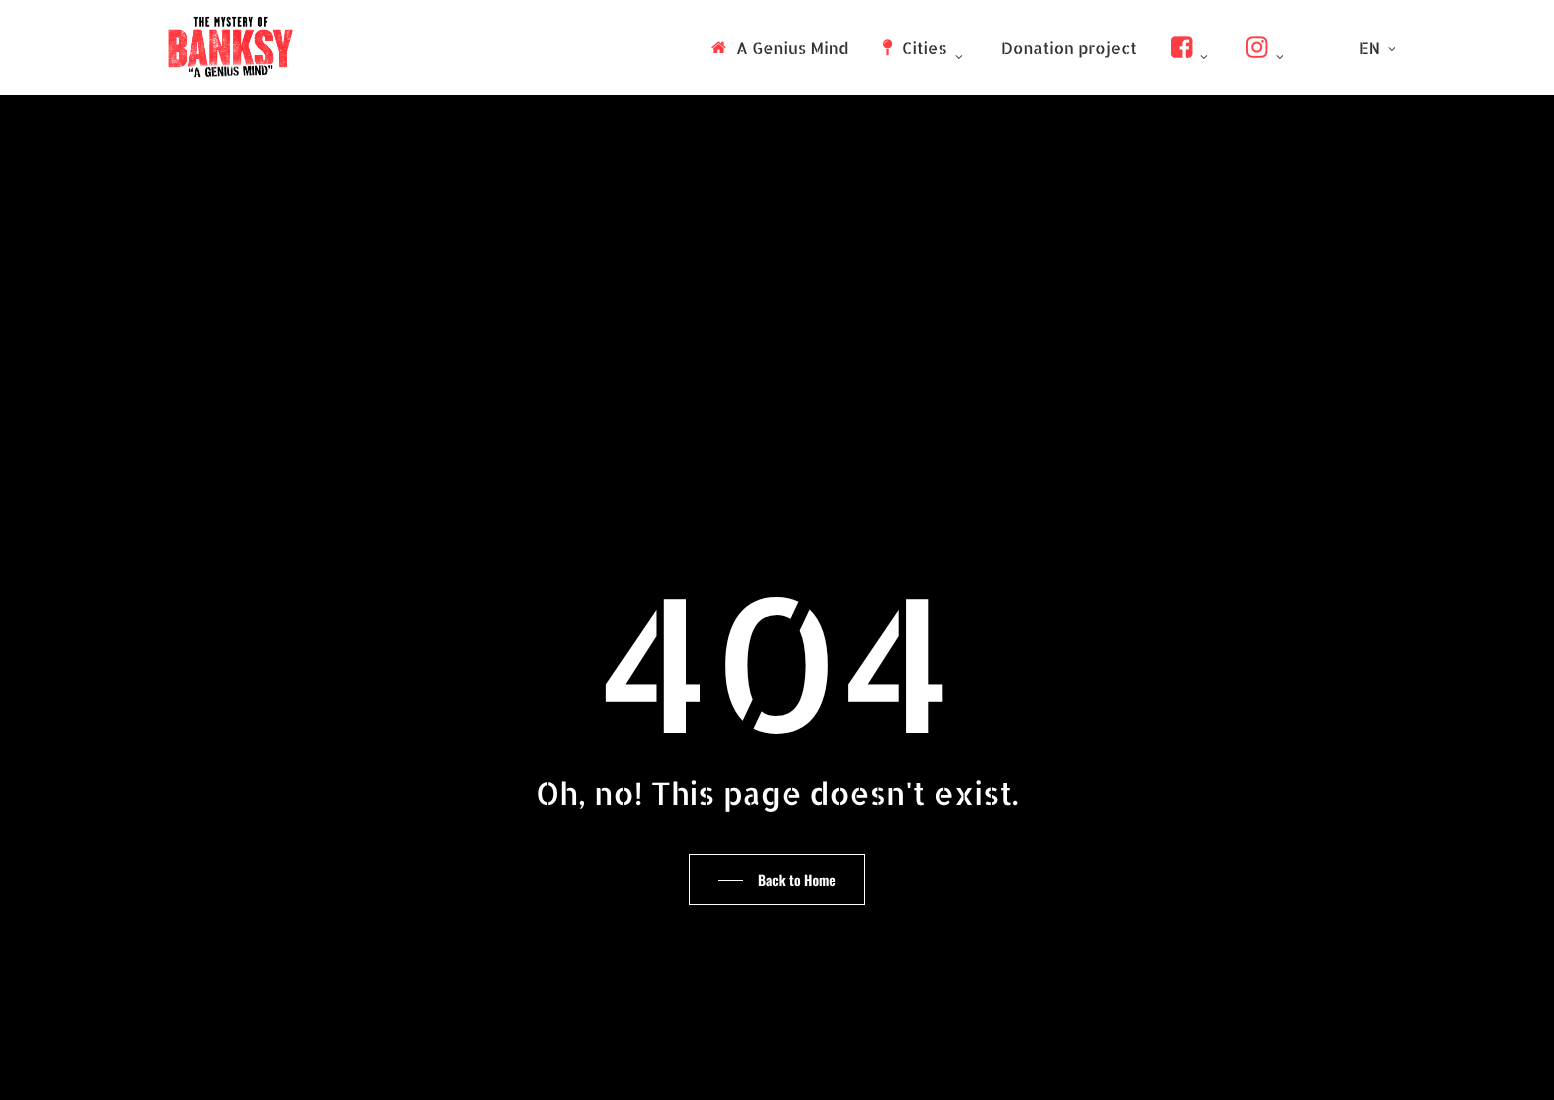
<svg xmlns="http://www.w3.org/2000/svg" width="1554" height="1100">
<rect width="100%" height="100%" fill="#fff"/>
<image x="168" y="16" width="125" height="62" href="media/1.png"/>
<image x="711" y="41" width="15" height="12" href="media/2.png"/>
<text x="736" y="54" style="font-family:Allerta Stencil;font-size:16px;fill:#333">A Genius Mind</text>
<image x="883" y="39" width="10" height="17" href="media/3.png"/>
<text x="902" y="54" style="font-family:Allerta Stencil;font-size:16px;fill:#333">Cities</text>
<image x="955" y="55" width="8" height="4" href="media/4.png"/>
<text x="1001" y="54" style="font-family:Allerta Stencil;font-size:16px;fill:#333">Donation project</text>
<image x="1171" y="36" width="22" height="22" href="media/5.png"/>
<image x="1200" y="55" width="8" height="4" href="media/4.png"/>
<image x="1246" y="36" width="22" height="22" href="media/6.png"/>
<image x="1276" y="55" width="8" height="4" href="media/4.png"/>
<text x="1359" y="54" style="font-family:Allerta Stencil;font-size:16px;fill:#333">EN</text>
<image x="1388" y="47" width="8" height="4" href="media/4.png"/>
<rect y="95" width="1554" height="1005" fill="#000"/>
<text x="599" y="733" style="font-family:Allerta Stencil;font-size:186px;fill:#fff">404</text>
<text x="536" y="805" style="font-family:Allerta Stencil;font-size:31.1px;fill:#fff">Oh, no! This page doesn't exist.</text>
<rect x="689.5" y="854.5" width="175" height="50" fill="none" stroke="#fff"/>
<rect x="718" y="880" width="25" height="1" fill="#fff"/>
<text x="758" y="886" style="font-family:Oswald;font-size:14px;font-weight:600;fill:#fff">Back to Home</text>
</svg>
